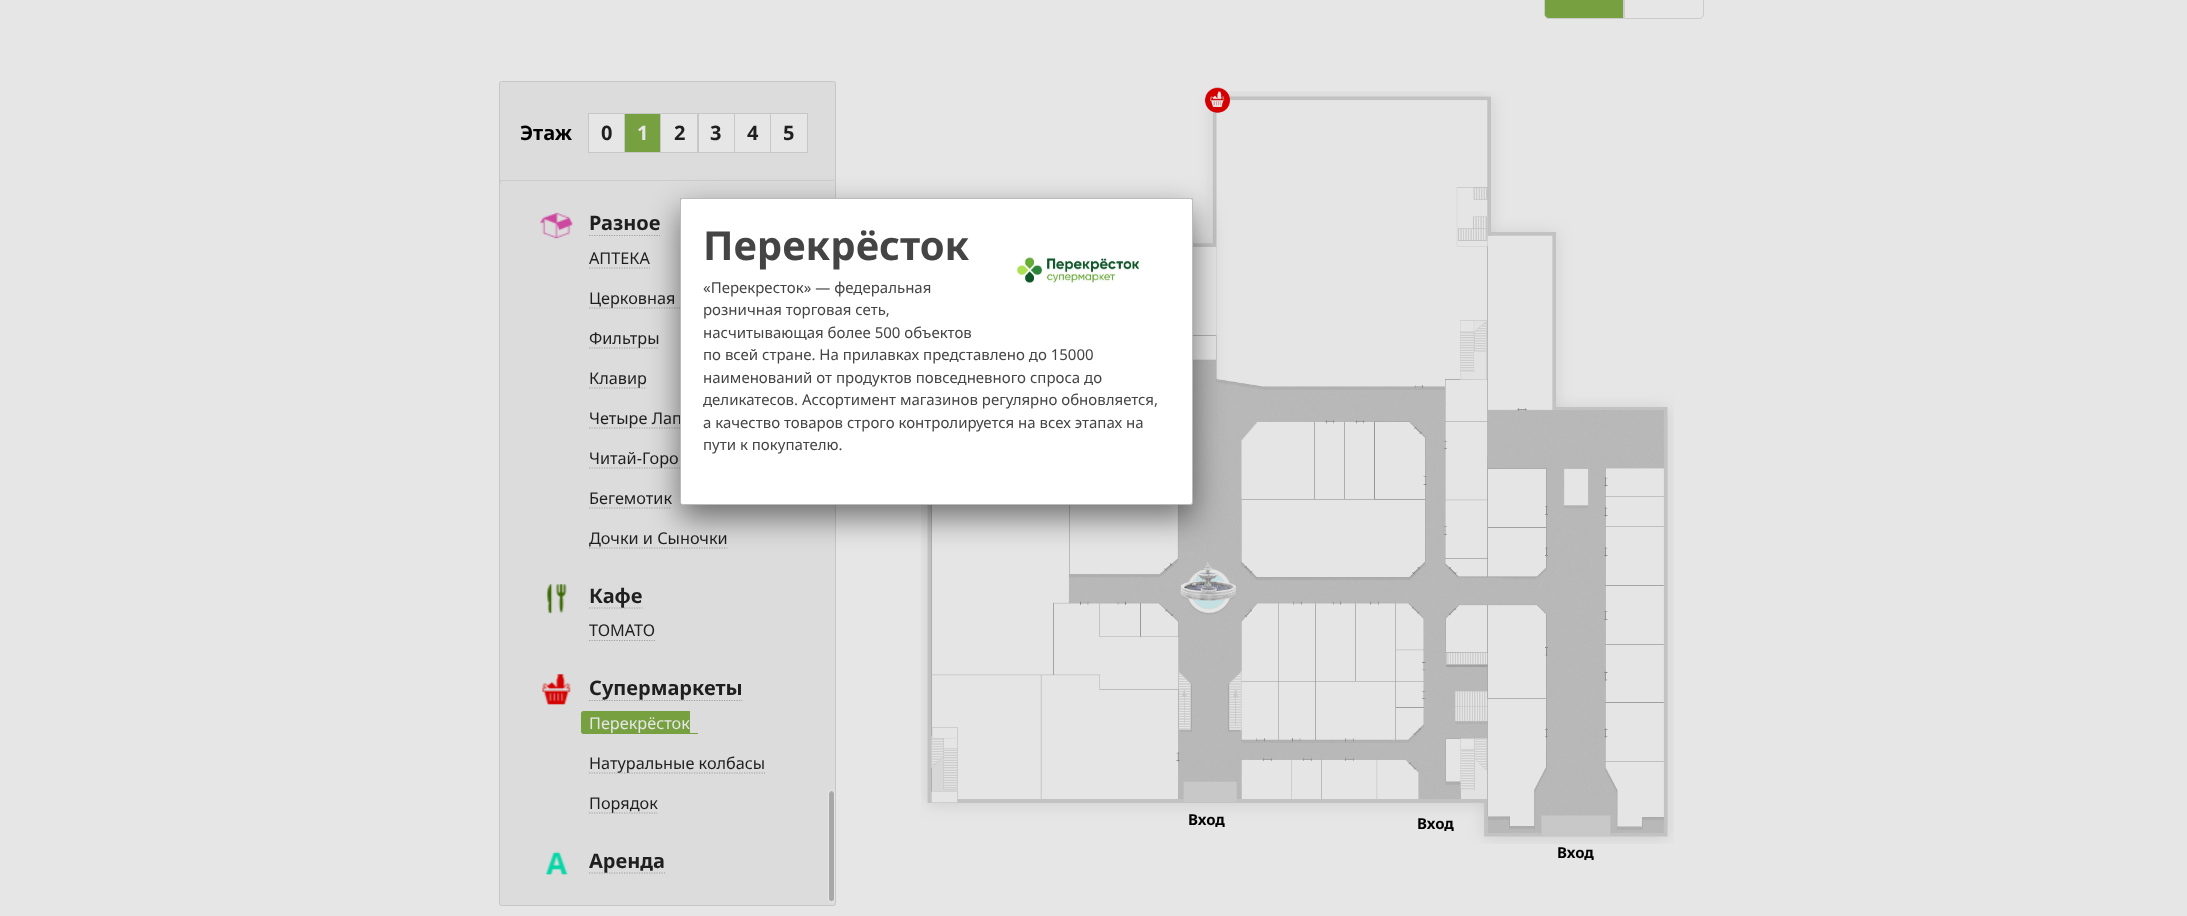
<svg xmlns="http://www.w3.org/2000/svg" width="2187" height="916">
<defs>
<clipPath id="clip1"><rect x="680" y="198" width="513" height="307"/></clipPath>
</defs>
<rect width="100%" height="100%" fill="#e6e6e6"/>
<path d="M1549-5.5h74.5v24h-74.5c-2.5 0-4.5-2-4.5-4.5v-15c0-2.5 2-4.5 4.5-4.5z" fill="#77a140" stroke="#cbcbcb"/>
<path d="M1624.5-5.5h74.5c2.5 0 4.5 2 4.5 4.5v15c0 2.5-2 4.5-4.5 4.5h-74.5z" fill="none" stroke="#cbcbcb"/>
<rect x="499.5" y="81.5" width="336" height="824" rx="2" fill="#dcdcdc" stroke="#c7c7c7"/>
<text x="520" y="140" style="font-family:Noto Sans;font-size:20px;font-weight:bold;fill:#000">Этаж</text>
<rect x="588.5" y="113.5" width="36" height="39" fill="#e6e6e6" stroke="#c7c7c7"/>
<text x="601" y="140" style="font-family:Noto Sans;font-size:20px;font-weight:bold;fill:#1f1f1f">0</text>
<rect x="624.5" y="113.5" width="36" height="39" fill="#77a140" stroke="#c7c7c7"/>
<text x="637" y="140" style="font-family:Noto Sans;font-size:20px;font-weight:bold;fill:#e6e6e6">1</text>
<rect x="660.5" y="113.5" width="37" height="39" fill="#e6e6e6" stroke="#c7c7c7"/>
<text x="674" y="140" style="font-family:Noto Sans;font-size:20px;font-weight:bold;fill:#1f1f1f">2</text>
<rect x="698.5" y="113.5" width="36" height="39" fill="#e6e6e6" stroke="#c7c7c7"/>
<text x="710" y="140" style="font-family:Noto Sans;font-size:20px;font-weight:bold;fill:#1f1f1f">3</text>
<rect x="734.5" y="113.5" width="36" height="39" fill="#e6e6e6" stroke="#c7c7c7"/>
<text x="747" y="140" style="font-family:Noto Sans;font-size:20px;font-weight:bold;fill:#1f1f1f">4</text>
<rect x="770.5" y="113.5" width="37" height="39" fill="#e6e6e6" stroke="#c7c7c7"/>
<text x="783" y="140" style="font-family:Noto Sans;font-size:20px;font-weight:bold;fill:#1f1f1f">5</text>
<rect x="500" y="180" width="335" height="1" fill="#ccc"/>
<rect x="834" y="180" width="1" height="3" fill="#dbdbdb"/>
<rect x="500" y="180" width="1" height="3" fill="#ccc"/>
<image x="539" y="212" width="34" height="27" href="media/1.png"/>
<text x="589" y="230" style="font-family:Noto Sans;font-size:20px;font-weight:bold;fill:#1f1f1f">Разное</text>
<path d="M589 235.5h71" fill="none" stroke="#a1a1a1" stroke-width="1.2" stroke-dasharray="1.25 1.25"/>
<text x="589" y="264" style="font-family:Noto Sans;font-size:16.25px;fill:#1f1f1f">АПТЕКА</text>
<path d="M589 268h61" fill="none" stroke="#a1a1a1" stroke-width="1.2" stroke-dasharray="1.25 1.25"/>
<text x="589" y="304" style="font-family:Noto Sans;font-size:16.25px;fill:#1f1f1f">Церковная</text>
<path d="M589 308h136" fill="none" stroke="#7a7a7a99" stroke-width="1.2" stroke-dasharray="1.25 1.25"/>
<text x="589" y="344" style="font-family:Noto Sans;font-size:16.25px;fill:#1f1f1f">Фильтры</text>
<path d="M589 348h70" fill="none" stroke="#7a7a7a99" stroke-width="1.2" stroke-dasharray="1.25 1.25"/>
<text x="589" y="384" style="font-family:Noto Sans;font-size:16.25px;fill:#1f1f1f">Клавир</text>
<path d="M589 388h57" fill="none" stroke="#7a7a7a99" stroke-width="1.2" stroke-dasharray="1.25 1.25"/>
<text x="589" y="424" style="font-family:Noto Sans;font-size:16.25px;fill:#1f1f1f">Четыре Лап</text>
<path d="M589 428h105" fill="none" stroke="#7a7a7a99" stroke-width="1.2" stroke-dasharray="1.25 1.25"/>
<text x="589" y="464" style="font-family:Noto Sans;font-size:16.25px;fill:#1f1f1f">Читай-Горо</text>
<path d="M589 468h100" fill="none" stroke="#a1a1a1" stroke-width="1.2" stroke-dasharray="1.25 1.25"/>
<text x="589" y="504" style="font-family:Noto Sans;font-size:16.25px;fill:#1f1f1f">Бегемотик</text>
<path d="M589 508h82" fill="none" stroke="#a1a1a1" stroke-width="1.2" stroke-dasharray="1.25 1.25"/>
<text x="589" y="544" style="font-family:Noto Sans;font-size:16.25px;fill:#1f1f1f">Дочки и Сыночки</text>
<path d="M589 548h138.5" fill="none" stroke="#a1a1a1" stroke-width="1.2" stroke-dasharray="1.25 1.25"/>
<image x="546" y="584" width="21" height="30" href="media/2.png"/>
<text x="589" y="603" style="font-family:Noto Sans;font-size:20px;font-weight:bold;fill:#1f1f1f">Кафе</text>
<path d="M589 608h53.5" fill="none" stroke="#7a7a7a99" stroke-width="1.2" stroke-dasharray="1.25 1.25"/>
<text x="589" y="636" style="font-family:Noto Sans;font-size:16.25px;fill:#1f1f1f">ТОМАТО</text>
<path d="M589 640.5h66" fill="none" stroke="#a1a1a1" stroke-width="1.2" stroke-dasharray="1.25 1.25"/>
<image x="542" y="674" width="29" height="31" href="media/3.png"/>
<text x="589" y="695" style="font-family:Noto Sans;font-size:20px;font-weight:bold;fill:#1f1f1f">Супермаркеты</text>
<path d="M589 700.5h153.5" fill="none" stroke="#a1a1a1" stroke-width="1.2" stroke-dasharray="1.25 1.25"/>
<path d="M583.5 711h106.5v23h-106.5c-1.5 0-2.5-1-2.5-2.5v-18c0-1.5 1-2.5 2.5-2.5z" fill="#77a140"/>
<text x="589" y="729" style="font-family:Noto Sans;font-size:16.25px;fill:#e6e6e6">Перекрёсток</text>
<path d="M589 733h108.5c.5 0 .5 0 .5 .5c0 .5 0 .5-.5 .5h-108.5z" fill="#77a140"/>
<text x="589" y="769" style="font-family:Noto Sans;font-size:16.25px;fill:#1f1f1f">Натуральные колбасы</text>
<path d="M589 773h176" fill="none" stroke="#7a7a7a99" stroke-width="1.2" stroke-dasharray="1.25 1.25"/>
<text x="589" y="809" style="font-family:Noto Sans;font-size:16.25px;fill:#1f1f1f">Порядок</text>
<path d="M589 813h68.5" fill="none" stroke="#7a7a7a99" stroke-width="1.2" stroke-dasharray="1.25 1.25"/>
<image x="545" y="851" width="24" height="24" href="media/4.png"/>
<text x="589" y="868" style="font-family:Noto Sans;font-size:20px;font-weight:bold;fill:#1f1f1f">Аренда</text>
<path d="M589 873h76" fill="none" stroke="#7a7a7a99" stroke-width="1.2" stroke-dasharray="1.25 1.25"/>
<image x="921" y="91" width="753" height="753" href="media/5.png"/>
<image x="1205" y="87" width="25" height="26" href="media/6.png"/>
<image x="1200" y="581" width="17" height="14" href="media/7.png"/>
<text x="1188" y="825" style="font-family:Noto Sans;font-size:15px;font-weight:bold;fill:#000">Вход</text>
<text x="1417" y="829" style="font-family:Noto Sans;font-size:15px;font-weight:bold;fill:#000">Вход</text>
<text x="1557" y="858" style="font-family:Noto Sans;font-size:15px;font-weight:bold;fill:#000">Вход</text>
<rect x="680" y="210" width="513" height="308" rx="5" fill="#00000080" filter="blur(15.5px)"/>
<g clip-path="url(#clip1)">
<rect x="680" y="198" width="513" height="307" rx="2.5" fill="#888" filter="blur(6px)"/>
</g>
<rect x="680.5" y="198.5" width="512" height="306" rx="2" fill="#fff" stroke="#bbb"/>
<text x="703" y="260" style="font-family:Noto Sans;font-size:40px;font-weight:bold;fill:#444">Перекрёсток</text>
<image x="1017" y="256" width="123" height="28" href="media/8.png"/>
<text x="703" y="293" style="font-family:Noto Sans;font-size:15px;fill:#444">«Перекресток» — федеральная</text>
<text x="703" y="315" style="font-family:Noto Sans;font-size:15px;fill:#444">розничная торговая сеть,</text>
<text x="703" y="338" style="font-family:Noto Sans;font-size:15px;fill:#444">насчитывающая более 500 объектов</text>
<text x="703" y="360" style="font-family:Noto Sans;font-size:15px;fill:#444">по всей стране. На прилавках представлено до 15000</text>
<text x="703" y="383" style="font-family:Noto Sans;font-size:15px;fill:#444">наименований от продуктов повседневного спроса до</text>
<text x="703" y="405" style="font-family:Noto Sans;font-size:15px;fill:#444">деликатесов. Ассортимент магазинов регулярно обновляется,</text>
<text x="703" y="428" style="font-family:Noto Sans;font-size:15px;fill:#444">а качество товаров строго контролируется на всех этапах на</text>
<text x="703" y="450" style="font-family:Noto Sans;font-size:15px;fill:#444">пути к покупателю.</text>
<rect x="829" y="791" width="5" height="110" rx="2.5" fill="#a8a8a8"/>
<rect x="828.5" y="790.5" width="6" height="112" rx="3" fill="none" stroke="#e6e6e6"/>
</svg>
